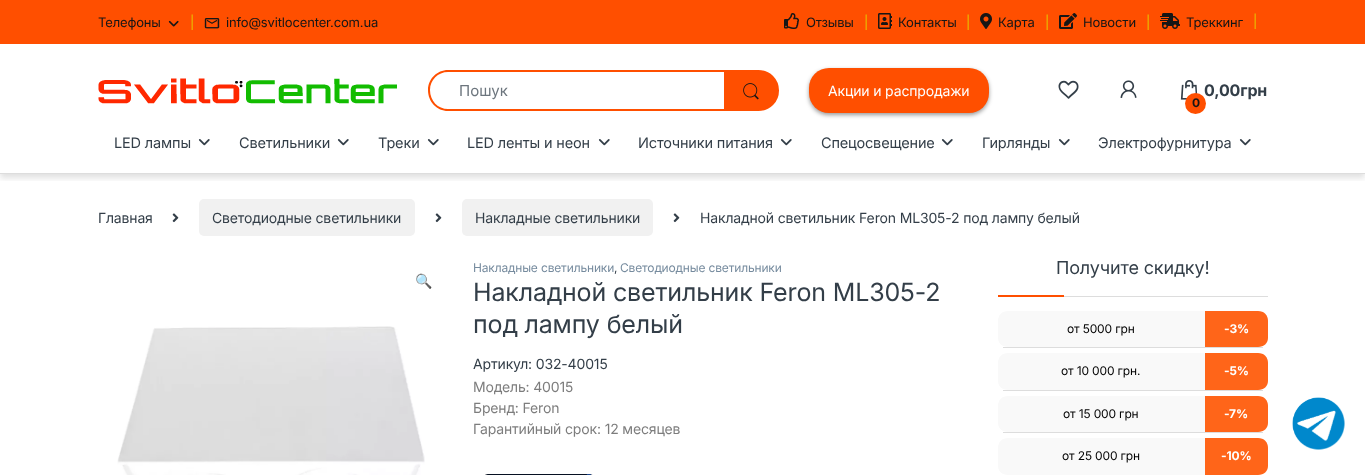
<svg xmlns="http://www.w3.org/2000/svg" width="1365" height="475">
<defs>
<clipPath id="clip1"><rect x="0" y="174" width="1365" height="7"/></clipPath>
</defs>
<rect width="100%" height="100%" fill="#fff"/>
<rect width="1365" height="44" fill="#ff4f00"/>
<text x="98" y="27" style="font-family:Inter;font-size:13px;letter-spacing:-0.15px;fill:#161616">Телефоны</text>
<image x="168" y="20" width="11" height="7" href="media/1.png"/>
<text x="190" y="27" style="font-family:Inter;font-size:13px;letter-spacing:-0.15px;fill:#e7c400">|</text>
<image x="204" y="18" width="16" height="11" href="media/2.png"/>
<text x="226" y="27" style="font-family:Inter;font-size:13px;letter-spacing:-0.15px;fill:#161616">info@svitlocenter.com.ua</text>
<image x="784" y="13" width="15" height="16" href="media/3.png"/>
<text x="806" y="27" style="font-family:Inter;font-size:13px;letter-spacing:-0.15px;fill:#161616">Отзывы</text>
<text x="864" y="27" style="font-family:Inter;font-size:13px;letter-spacing:-0.15px;fill:#e7c400">|</text>
<image x="878" y="13" width="14" height="16" href="media/4.png"/>
<text x="898" y="27" style="font-family:Inter;font-size:13px;letter-spacing:-0.15px;fill:#161616">Контакты</text>
<text x="966" y="27" style="font-family:Inter;font-size:13px;letter-spacing:-0.15px;fill:#e7c400">|</text>
<image x="980" y="13" width="12" height="16" href="media/5.png"/>
<text x="998" y="27" style="font-family:Inter;font-size:13px;letter-spacing:-0.15px;fill:#161616">Карта</text>
<text x="1045" y="27" style="font-family:Inter;font-size:13px;letter-spacing:-0.15px;fill:#e7c400">|</text>
<image x="1059" y="13" width="18" height="16" href="media/6.png"/>
<text x="1083" y="27" style="font-family:Inter;font-size:13px;letter-spacing:-0.15px;fill:#161616">Новости</text>
<text x="1146" y="27" style="font-family:Inter;font-size:13px;letter-spacing:-0.15px;fill:#e7c400">|</text>
<image x="1160" y="13" width="20" height="16" href="media/7.png"/>
<text x="1186" y="27" style="font-family:Inter;font-size:13px;letter-spacing:-0.15px;fill:#161616">Треккинг</text>
<text x="1253" y="26" style="font-family:Inter;font-size:13px;letter-spacing:-0.15px;fill:#e7c400">|</text>
<g clip-path="url(#clip1)">
<rect y="48" width="1365" height="130" fill="#0000001f" filter="blur(3px)"/>
</g>
<rect y="173" width="1365" height="1" fill="#ddd"/>
<image x="98" y="78" width="299" height="26" href="media/8.png"/>
<path d="M724 71h34.5c11 0 19.5 8.5 19.5 19.5c0 11-8.5 19.5-19.5 19.5h-34.5z" fill="#ff4f00" stroke="#ff4f00" stroke-width="2"/>
<path d="M448.5 72h275.5v37h-275.5c-10 0-18.5-8.5-18.5-18.5c0-10 8.5-18.5 18.5-18.5z" fill="#fff"/>
<path d="M448 70h276v41h-276c-11 0-20-9-20-21c0-11 9-20 20-20zm0 2h276v37h-276c-10 0-18-8-18-19c0-10 8-18 18-18z" fill="#ff4f00" fill-rule="evenodd"/>
<text x="459" y="96" style="font-family:Inter;font-size:15px;fill:#6c757d">Пошук</text>
<image x="743" y="83" width="16" height="17" href="media/9.png"/>
<rect x="809" y="70" width="180" height="45" rx="20" fill="#00000066" filter="blur(2px)"/>
<rect x="809" y="68" width="180" height="45" rx="20" fill="#ff4f00"/>
<text x="828" y="96" style="font-family:Inter;font-size:14px;letter-spacing:-0.15px;fill:#fff">Акции и распродажи</text>
<image x="1058" y="80" width="21" height="19" href="media/10.png"/>
<image x="1120" y="80" width="17" height="18" href="media/11.png"/>
<image x="1180" y="80" width="18" height="20" href="media/12.png"/>
<text x="1204" y="96" style="font-family:Inter;font-size:16px;font-weight:bold;letter-spacing:-0.15px;fill:#333e48">0,00грн</text>
<circle cx="1195.5" cy="103.5" r="10.5" fill="#ff4f00"/>
<text x="1192" y="107" style="font-family:Inter;font-size:12px;font-weight:bold;letter-spacing:-0.15px;fill:#161616">0</text>
<text x="114" y="148" style="font-family:Inter;font-size:14.5px;letter-spacing:-0.15px;fill:#333e48">LED лампы</text>
<image x="198" y="139" width="12" height="7" href="media/13.png"/>
<text x="239" y="148" style="font-family:Inter;font-size:14.5px;letter-spacing:-0.15px;fill:#333e48">Светильники</text>
<image x="337" y="139" width="12" height="7" href="media/13.png"/>
<text x="378" y="148" style="font-family:Inter;font-size:14.5px;letter-spacing:-0.15px;fill:#333e48">Треки</text>
<image x="427" y="139" width="12" height="7" href="media/13.png"/>
<text x="467" y="148" style="font-family:Inter;font-size:14.5px;letter-spacing:-0.15px;fill:#333e48">LED ленты и неон</text>
<image x="598" y="139" width="12" height="7" href="media/13.png"/>
<text x="638" y="148" style="font-family:Inter;font-size:14.5px;letter-spacing:-0.15px;fill:#333e48">Источники питания</text>
<image x="780" y="139" width="12" height="7" href="media/13.png"/>
<text x="821" y="148" style="font-family:Inter;font-size:14.5px;letter-spacing:-0.15px;fill:#333e48">Спецосвещение</text>
<image x="941" y="139" width="12" height="7" href="media/13.png"/>
<text x="982" y="148" style="font-family:Inter;font-size:14.5px;letter-spacing:-0.15px;fill:#333e48">Гирлянды</text>
<image x="1058" y="139" width="12" height="7" href="media/13.png"/>
<text x="1098" y="148" style="font-family:Inter;font-size:14.5px;letter-spacing:-0.15px;fill:#333e48">Электрофурнитура</text>
<image x="1239" y="139" width="12" height="7" href="media/13.png"/>
<text x="98" y="223" style="font-family:Inter;font-size:14px;letter-spacing:-0.15px;fill:#333e48">Главная</text>
<image x="172" y="213" width="7" height="10" href="media/14.png"/>
<rect x="199" y="199" width="216" height="37" rx="5" fill="#f1f1f1"/>
<text x="212" y="223" style="font-family:Inter;font-size:14px;letter-spacing:-0.15px;fill:#333e48">Светодиодные светильники</text>
<image x="435" y="213" width="7" height="10" href="media/14.png"/>
<rect x="462" y="199" width="191" height="37" rx="5" fill="#f1f1f1"/>
<text x="475" y="223" style="font-family:Inter;font-size:14px;letter-spacing:-0.15px;fill:#333e48">Накладные светильники</text>
<image x="673" y="213" width="7" height="10" href="media/14.png"/>
<text x="700" y="223" style="font-family:Inter;font-size:14px;letter-spacing:-0.15px;fill:#333e48">Накладной светильник Feron ML305-2 под лампу белый</text>
<text x="415" y="286" style="font-family:Noto Color Emoji;font-size:14px;letter-spacing:-0.15px;fill:#333e48">🔍</text>
<image x="117" y="326" width="308" height="149" href="media/15.png"/>
<text x="473" y="272" style="font-family:Inter;font-size:12px;letter-spacing:-0.15px;fill:#768b9e">Накладные светильники</text>
<text x="614" y="272" style="font-family:Inter;font-size:12px;letter-spacing:-0.15px;fill:#333e48">,</text>
<text x="620" y="272" style="font-family:Inter;font-size:12px;letter-spacing:-0.15px;fill:#768b9e">Светодиодные светильники</text>
<text x="473" y="301" style="font-family:Inter;font-size:25px;letter-spacing:-0.15px;fill:#333e48">Накладной светильник Feron ML305-2</text>
<text x="473" y="333" style="font-family:Inter;font-size:25px;letter-spacing:-0.15px;fill:#333e48">под лампу белый</text>
<text x="473" y="369" style="font-family:Inter;font-size:14px;letter-spacing:-0.15px;fill:#333e48">Артикул: 032-40015</text>
<text x="473" y="392" style="font-family:Inter;font-size:14px;letter-spacing:-0.15px;fill:#7d7d7d">Модель: 40015</text>
<text x="473" y="413" style="font-family:Inter;font-size:14px;letter-spacing:-0.15px;fill:#7d7d7d">Бренд: Feron</text>
<text x="473" y="434" style="font-family:Inter;font-size:14px;letter-spacing:-0.15px;fill:#7d7d7d">Гарантийный срок: 12 месяцев</text>
<image x="485" y="474" width="108" height="1" href="media/16.png"/>
<rect x="1064" y="296" width="204" height="1" fill="#ddd"/>
<text x="1056" y="274" style="font-family:Inter;font-size:18px;letter-spacing:-0.15px;fill:#333e48">Получите скидку!</text>
<rect x="998" y="295" width="66" height="2" fill="#ff4f00"/>
<path d="M1008 311h197v36h-197c-6 0-10-4-10-9v-17c0-6 4-10 10-10z" fill="#f9f9f9"/>
<rect x="1003" y="347" width="260" height="1" fill="#ddd"/>
<text x="1067" y="333" style="font-family:Inter;font-size:12px;letter-spacing:-0.15px;fill:#000">от 5000 грн</text>
<path d="M1205 311h53c6 0 10 4 10 10v17c0 5-4 9-10 9h-53z" fill="#ff6519"/>
<text x="1224" y="333" style="font-family:Inter;font-size:12px;font-weight:bold;letter-spacing:-0.15px;fill:#fff">-3%</text>
<path d="M1008 353h197v37h-197c-6 0-10-4-10-9v-18c0-6 4-10 10-10z" fill="#f9f9f9"/>
<rect x="1003" y="390" width="260" height="1" fill="#ddd"/>
<text x="1061" y="375" style="font-family:Inter;font-size:12px;letter-spacing:-0.15px;fill:#000">от 10 000 грн.</text>
<path d="M1205 353h53c6 0 10 4 10 10v18c0 5-4 9-10 9h-53z" fill="#ff6519"/>
<text x="1224" y="375" style="font-family:Inter;font-size:12px;font-weight:bold;letter-spacing:-0.15px;fill:#fff">-5%</text>
<path d="M1008 396h197v36h-197c-6 0-10-4-10-9v-17c0-6 4-10 10-10z" fill="#f9f9f9"/>
<rect x="1003" y="432" width="260" height="1" fill="#ddd"/>
<text x="1063" y="418" style="font-family:Inter;font-size:12px;letter-spacing:-0.15px;fill:#000">от 15 000 грн</text>
<path d="M1205 396h53c6 0 10 4 10 10v17c0 5-4 9-10 9h-53z" fill="#ff6519"/>
<text x="1224" y="418" style="font-family:Inter;font-size:12px;font-weight:bold;letter-spacing:-0.15px;fill:#fff">-7%</text>
<path d="M1008 438h197v37h-197c-6 0-10-4-10-9v-18c0-6 4-10 10-10z" fill="#f9f9f9"/>
<text x="1062" y="460" style="font-family:Inter;font-size:12px;letter-spacing:-0.15px;fill:#000">от 25 000 грн</text>
<path d="M1205 438h53c6 0 10 4 10 10v18c0 5-4 9-10 9h-53z" fill="#ff6519"/>
<text x="1221" y="460" style="font-family:Inter;font-size:12px;font-weight:bold;letter-spacing:-0.15px;fill:#fff">-10%</text>
<image x="1292" y="397" width="53" height="53" href="media/17.png"/>
</svg>
